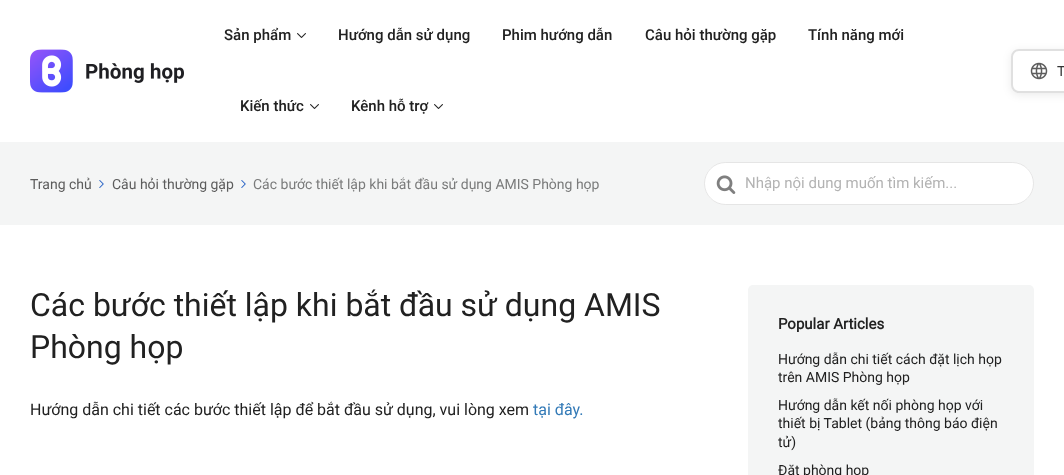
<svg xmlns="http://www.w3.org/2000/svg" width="1064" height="475">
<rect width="100%" height="100%" fill="#fff"/>
<image x="30" y="49" width="154" height="44" href="media/1.png"/>
<text x="224" y="40" style="font-family:Roboto;font-size:15px;font-weight:500;fill:#212121">Sản phẩm</text>
<image x="297" y="33" width="9" height="5" href="media/2.png"/>
<text x="338" y="40" style="font-family:Roboto;font-size:15px;font-weight:500;fill:#212121">Hướng dẫn sử dụng</text>
<text x="502" y="40" style="font-family:Roboto;font-size:15px;font-weight:500;fill:#212121">Phim hướng dẫn</text>
<text x="645" y="40" style="font-family:Roboto;font-size:15px;font-weight:500;fill:#212121">Câu hỏi thường gặp</text>
<text x="808" y="40" style="font-family:Roboto;font-size:15px;font-weight:500;fill:#212121">Tính năng mới</text>
<text x="240" y="111" style="font-family:Roboto;font-size:15px;font-weight:500;fill:#212121">Kiến thức</text>
<image x="310" y="104" width="9" height="5" href="media/2.png"/>
<text x="351" y="111" style="font-family:Roboto;font-size:15px;font-weight:500;fill:#212121">Kênh hỗ trợ</text>
<image x="434" y="104" width="9" height="5" href="media/2.png"/>
<rect x="1011" y="51" width="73" height="44" rx="8" fill="#00000014" filter="blur(4px)"/>
<rect x="1012" y="50" width="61" height="42" rx="7" fill="#fff" stroke="#e0e0e0" stroke-width="2"/>
<image x="1030" y="62" width="18" height="18" href="media/3.png"/>
<text x="1057" y="76" style="font-family:Roboto;font-size:14px;fill:#333">T</text>
<rect y="142" width="1064" height="83" fill="#f4f5f5"/>
<text x="30" y="189" style="font-family:Roboto;font-size:14px;fill:#5c5c5c">Trang chủ</text>
<image x="99" y="180" width="5" height="8" href="media/4.png"/>
<text x="112" y="189" style="font-family:Roboto;font-size:14px;fill:#5c5c5c">Câu hỏi thường gặp</text>
<image x="241" y="180" width="5" height="8" href="media/4.png"/>
<text x="253" y="189" style="font-family:Roboto;font-size:14px;fill:#7a7b7b">Các bước thiết lập khi bắt đầu sử dụng AMIS Phòng họp</text>
<rect x="704" y="162" width="330" height="43" rx="21.5" fill="#fff"/>
<rect x="704.5" y="162.5" width="329" height="42" rx="21" fill="none" stroke="#cccccc80"/>
<image x="716" y="175" width="20" height="19" href="media/5.png"/>
<text x="745" y="188" style="font-family:Roboto;font-size:15px;fill:#b3b3b3">Nhập nội dung muốn tìm kiếm...</text>
<text x="30" y="316" style="font-family:Roboto;font-size:32px;fill:#212121">Các bước thiết lập khi bắt đầu sử dụng AMIS</text>
<text x="30" y="358" style="font-family:Roboto;font-size:32px;fill:#212121">Phòng họp</text>
<text x="30" y="415" style="font-family:Roboto;font-size:16px;fill:#212121">Hướng dẫn chi tiết các bước thiết lập để bắt đầu sử dụng, vui lòng xem</text>
<text x="533" y="415" style="font-family:Roboto;font-size:16px;fill:#337ab7">tại đây.</text>
<rect x="748" y="285" width="286" height="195" rx="5" fill="#f4f5f5"/>
<text x="778" y="329" style="font-family:Roboto;font-size:15px;font-weight:bold;fill:#212121">Popular Articles</text>
<text x="778" y="364" style="font-family:Roboto;font-size:14px;fill:#212121">Hướng dẫn chi tiết cách đặt lịch họp</text>
<text x="778" y="382" style="font-family:Roboto;font-size:14px;fill:#212121">trên AMIS Phòng họp</text>
<text x="778" y="410" style="font-family:Roboto;font-size:14px;fill:#212121">Hướng dẫn kết nối phòng họp với</text>
<text x="778" y="428" style="font-family:Roboto;font-size:14px;fill:#212121">thiết bị Tablet (bảng thông báo điện</text>
<text x="778" y="447" style="font-family:Roboto;font-size:14px;fill:#212121">tử)</text>
<text x="778" y="475" style="font-family:Roboto;font-size:14px;fill:#212121">Đặt phòng họp</text>
</svg>
